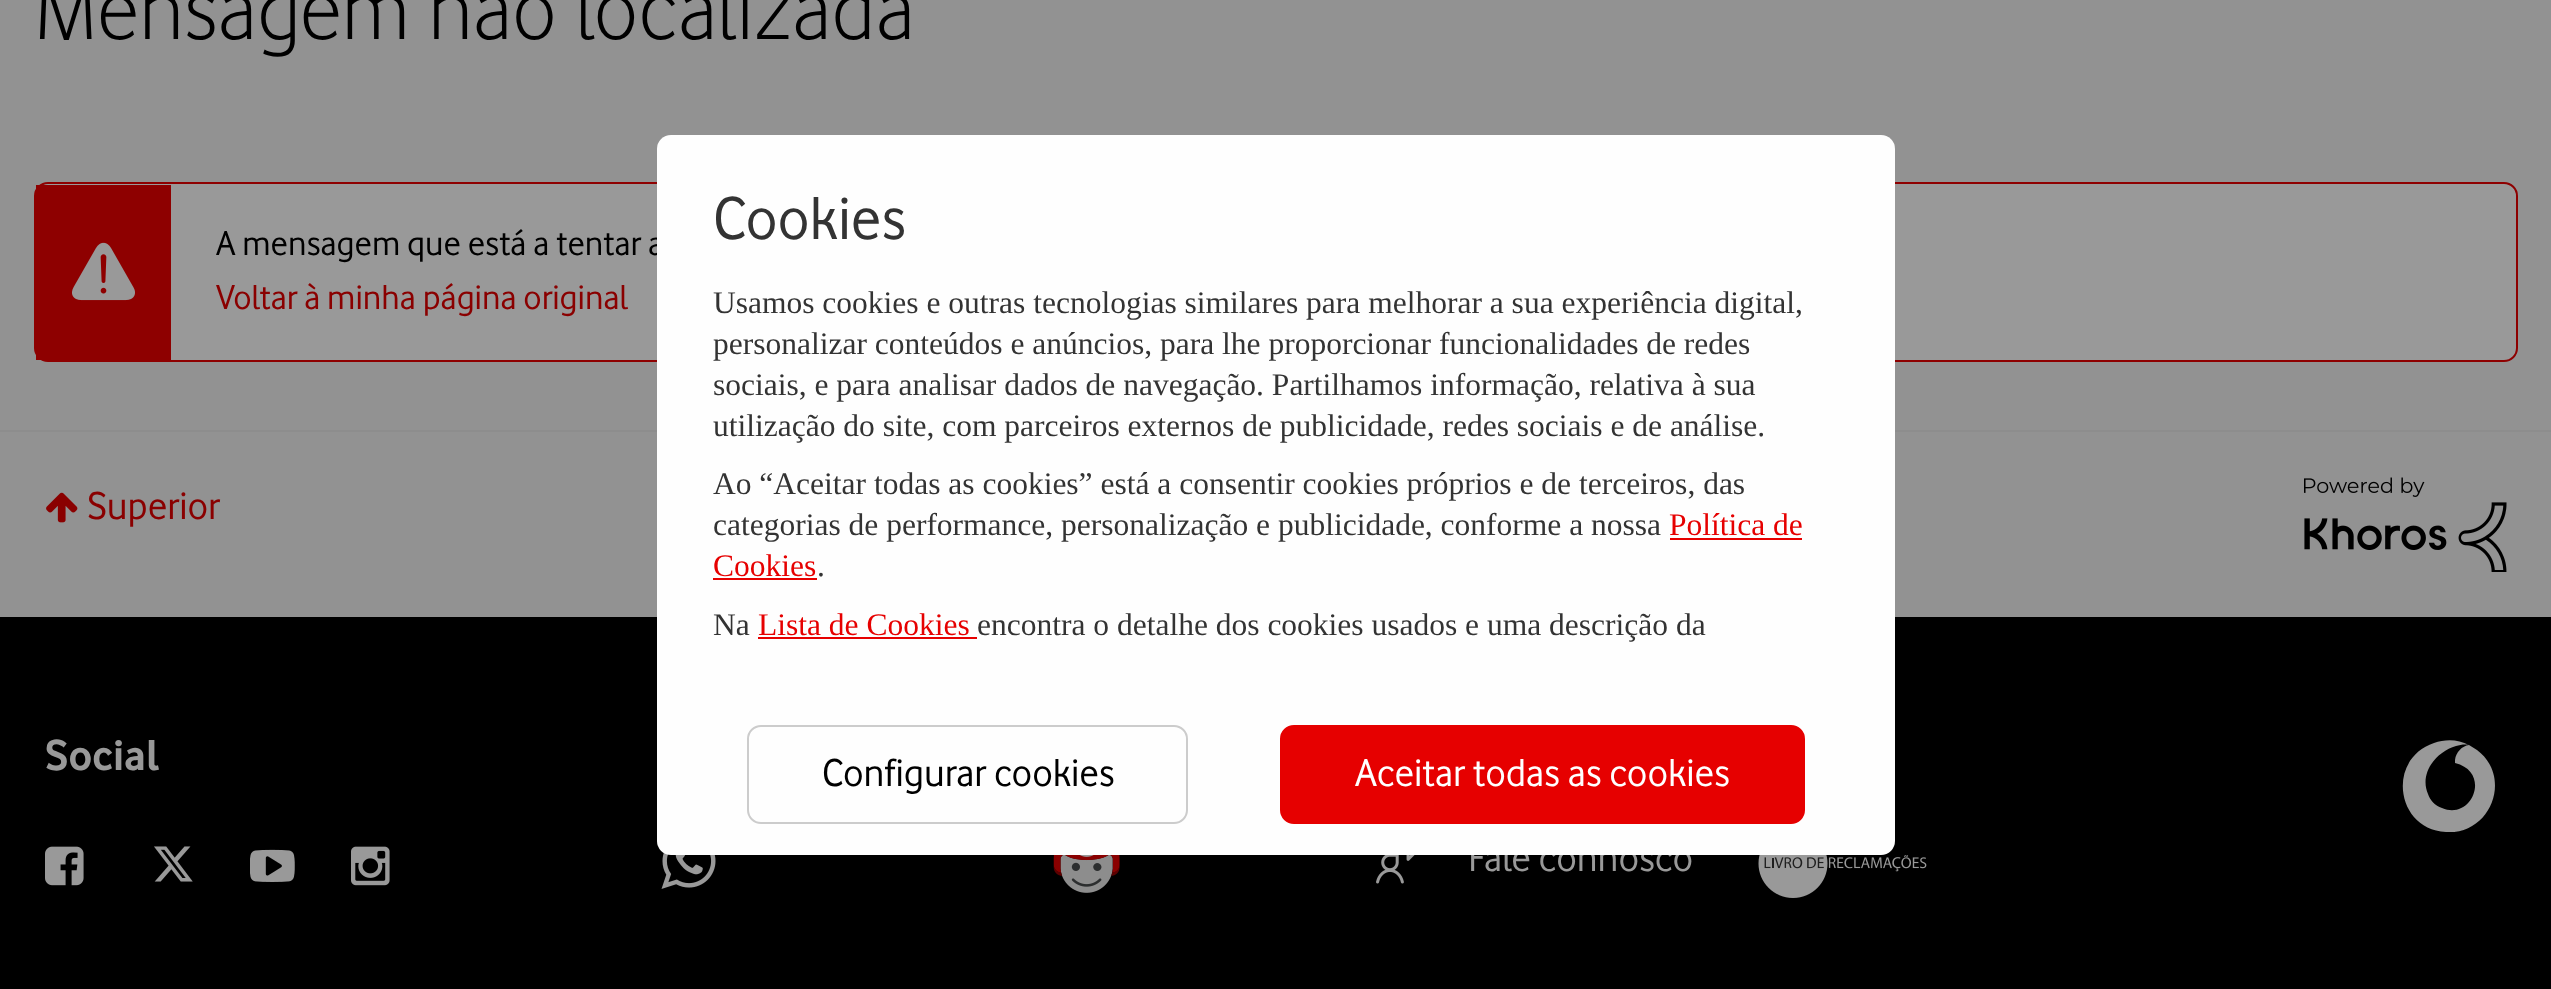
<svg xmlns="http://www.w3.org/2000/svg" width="2551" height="989">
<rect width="100%" height="100%" fill="#929292"/>
<text x="34" y="39" style="font-family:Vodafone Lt;font-size:90px;fill:#000">Mensagem não localizada</text>
<rect x="35" y="183" width="2482" height="178" rx="13" fill="#999" stroke="#8e0000" stroke-width="2"/>
<rect x="36" y="185" width="135" height="175" fill="#8e0000"/>
<image x="72" y="242" width="63" height="59" href="media/1.png"/>
<text x="216" y="255" style="font-family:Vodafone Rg;font-size:36px;fill:#000">A mensagem que está a tentar a</text>
<text x="216" y="309" style="font-family:Vodafone Rg;font-size:36px;fill:#8a0000">Voltar à minha página original</text>
<rect y="430" width="2551" height="2" fill="#8d8d8d"/>
<image x="46" y="492" width="32" height="31" href="media/2.png"/>
<text x="87" y="519" style="font-family:Vodafone Rg;font-size:40.5px;fill:#8a0000">Superior</text>
<image x="2304" y="477" width="203" height="95" href="media/3.png"/>
<rect y="617" width="2551" height="372" fill="#000"/>
<text x="45" y="770" style="font-family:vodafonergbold;font-size:45px;font-weight:bold;fill:#999">Social</text>
<image x="45" y="846" width="39" height="40" href="media/4.png"/>
<image x="154" y="846" width="39" height="36" href="media/5.png"/>
<image x="250" y="849" width="45" height="33" href="media/6.png"/>
<image x="351" y="846" width="39" height="40" href="media/7.png"/>
<path d="M2469 745c-7 1-13 7-14 15v3c37 9 17 58-13 45c-7-2-12-8-14-14c-9-21 8-42 28-48c4-1 9-2 13-1c-11-6-24-6-35-2c-48 16-38 87 12 89c45 3 67-55 31-82z" fill="#999"/>
<image x="661" y="852" width="55" height="37" href="media/8.png"/>
<image x="1053" y="855" width="67" height="38" href="media/9.png"/>
<image x="1376" y="855" width="39" height="29" href="media/10.png"/>
<text x="1468" y="871" style="font-family:Vodafone Rg;font-size:40.5px;fill:#999">Fale connosco</text>
<image x="1758" y="855" width="169" height="43" href="media/11.png"/>
<rect x="657" y="135" width="1238" height="720" rx="14" fill="#fefefe"/>
<text x="713" y="239" style="font-family:Vodafone Rg;font-size:63px;fill:#333">Cookies</text>
<text x="713" y="313" style="font-family:Liberation Serif;font-size:31.5px;fill:#333">Usamos cookies e outras tecnologias similares para melhorar a sua experiência digital,</text>
<text x="713" y="354" style="font-family:Liberation Serif;font-size:31.5px;fill:#333">personalizar conteúdos e anúncios, para lhe proporcionar funcionalidades de redes</text>
<text x="713" y="395" style="font-family:Liberation Serif;font-size:31.5px;fill:#333">sociais, e para analisar dados de navegação. Partilhamos informação, relativa à sua</text>
<text x="713" y="436" style="font-family:Liberation Serif;font-size:31.5px;fill:#333">utilização do site, com parceiros externos de publicidade, redes sociais e de análise.</text>
<text x="713" y="494" style="font-family:Liberation Serif;font-size:31.5px;fill:#333">Ao “Aceitar todas as cookies” está a consentir cookies próprios e de terceiros, das</text>
<text x="713" y="535" style="font-family:Liberation Serif;font-size:31.5px;fill:#333">categorias de performance, personalização e publicidade, conforme a nossa</text>
<text x="1669" y="535" style="font-family:Liberation Serif;font-size:31.5px;fill:#e60000">Política de</text>
<rect x="1670" y="538" width="132" height="2" fill="#e60000"/>
<text x="713" y="576" style="font-family:Liberation Serif;font-size:31.5px;fill:#e60000">Cookies</text>
<rect x="713" y="578" width="104" height="2" fill="#e60000"/>
<text x="817" y="576" style="font-family:Liberation Serif;font-size:31.5px;fill:#333">.</text>
<text x="713" y="635" style="font-family:Liberation Serif;font-size:31.5px;fill:#333">Na</text>
<text x="758" y="635" style="font-family:Liberation Serif;font-size:31.5px;fill:#e60000">Lista de Cookies</text>
<rect x="758" y="637" width="219" height="2" fill="#e60000"/>
<text x="977" y="635" style="font-family:Liberation Serif;font-size:31.5px;fill:#333">encontra o detalhe dos cookies usados e uma descrição da</text>
<rect x="748" y="726" width="439" height="97" rx="13" fill="none" stroke="#ccc" stroke-width="2"/>
<text x="822" y="786" style="font-family:Vodafone Rg;font-size:40.5px;fill:#000">Configurar cookies</text>
<rect x="1281" y="726" width="523" height="97" rx="13" fill="#e60000" stroke="#e60000" stroke-width="2"/>
<text x="1355" y="786" style="font-family:Vodafone Rg;font-size:40.5px;fill:#fff">Aceitar todas as cookies</text>
</svg>
